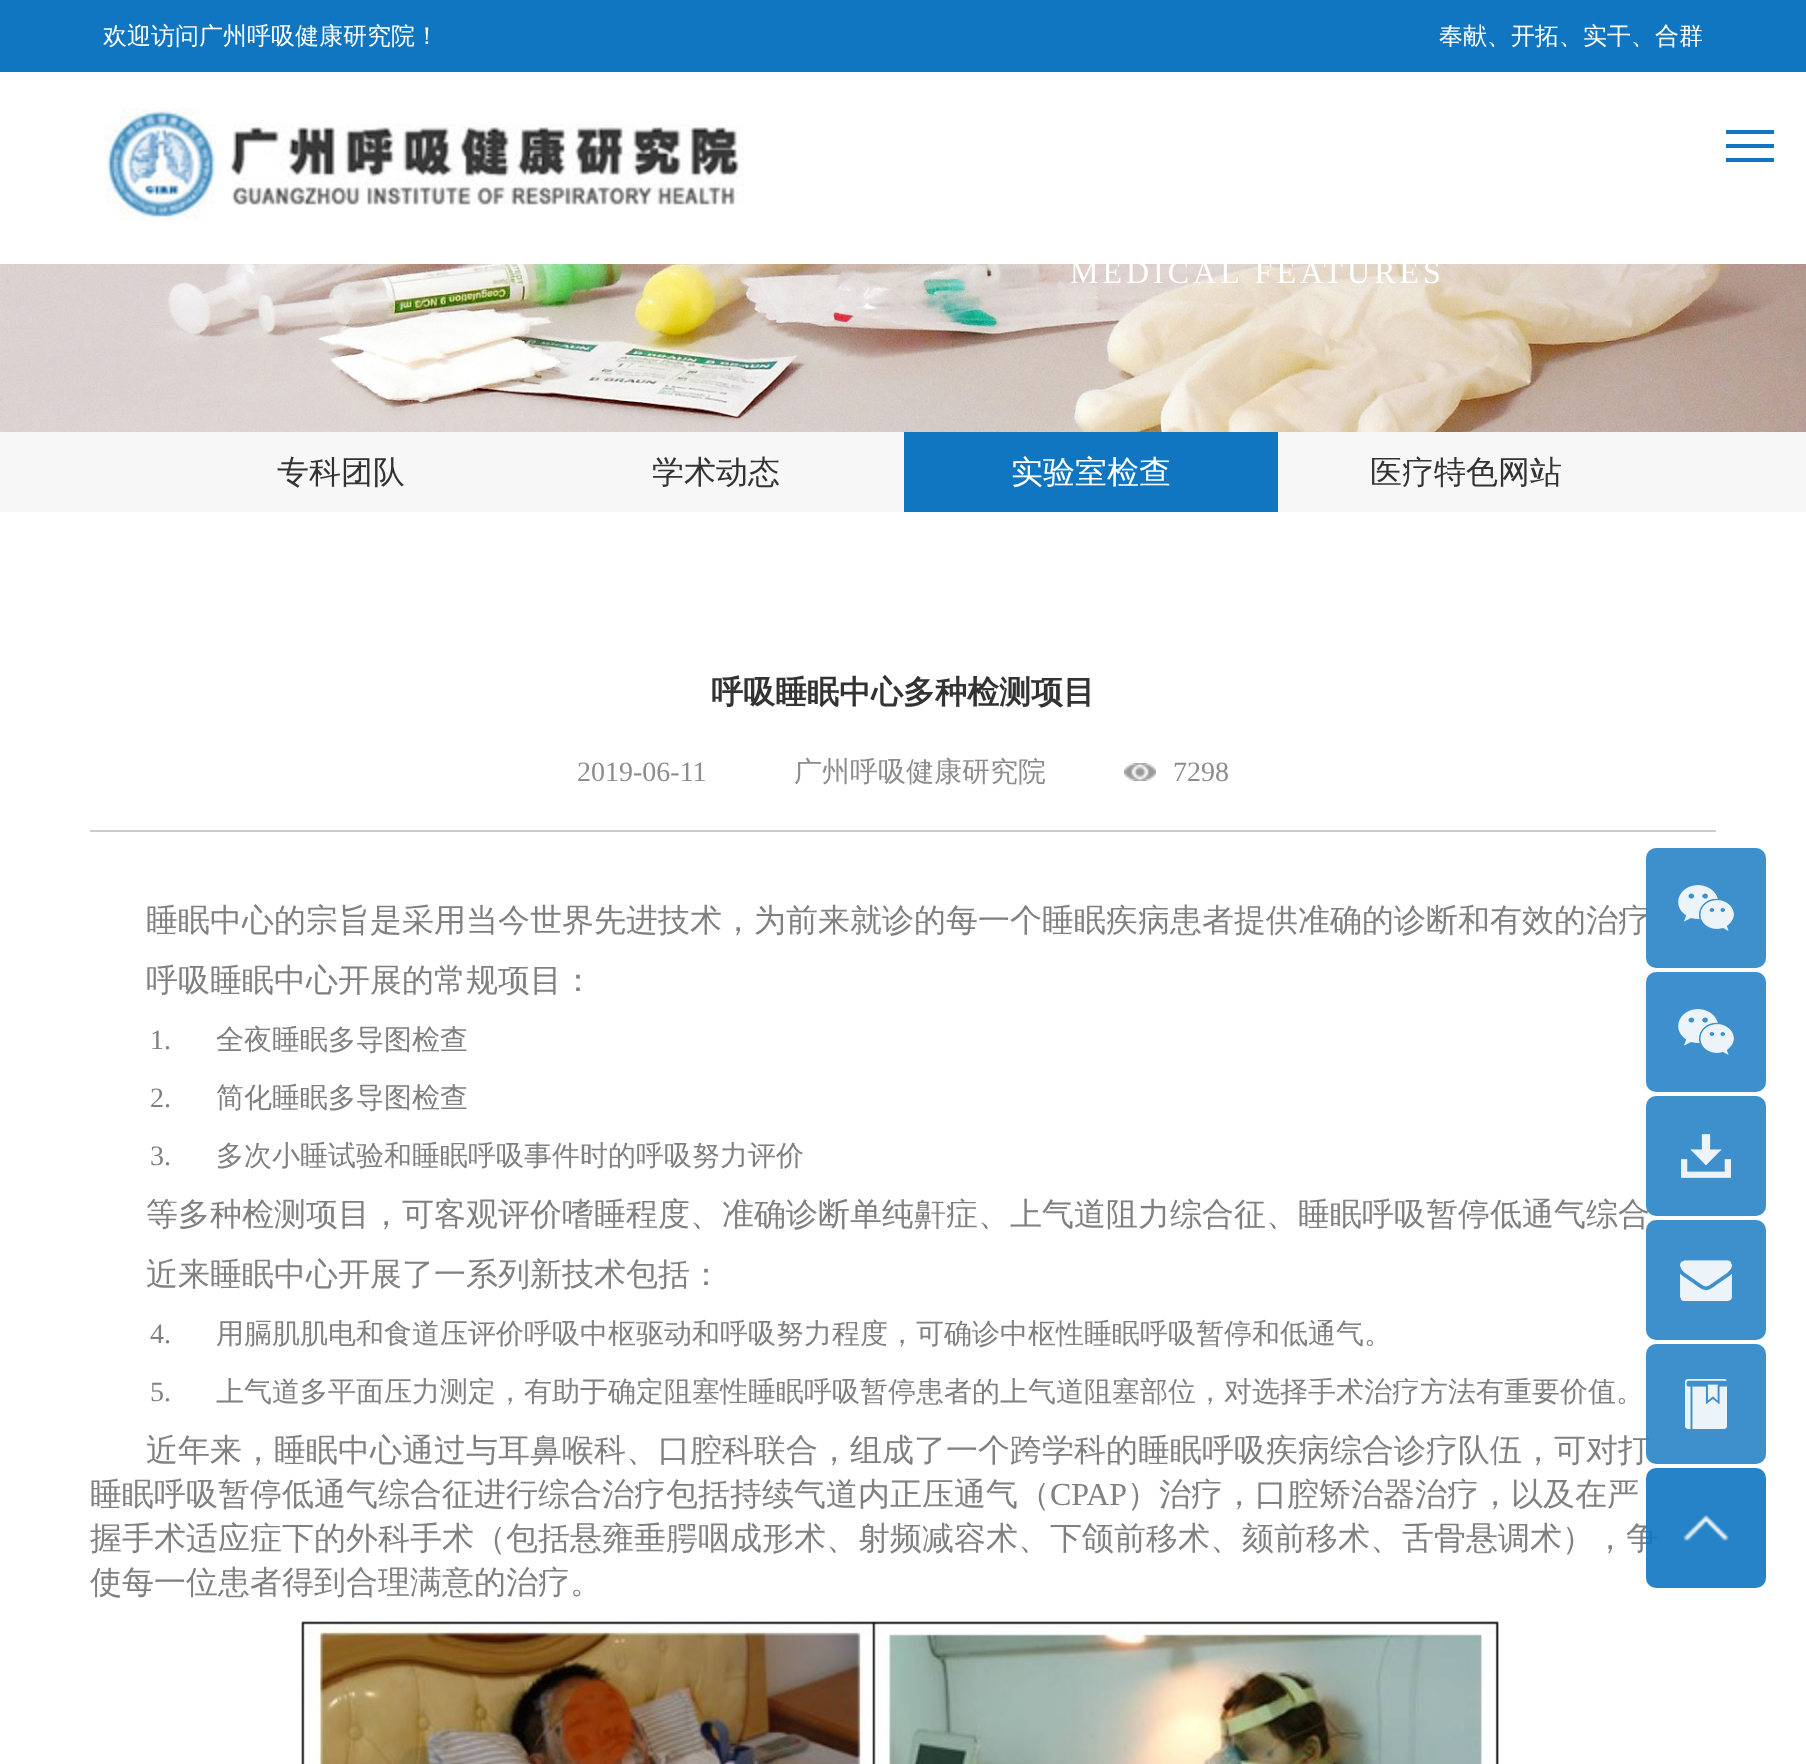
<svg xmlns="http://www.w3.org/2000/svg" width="1806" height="1764">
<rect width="100%" height="100%" fill="#fff"/>
<rect width="1806" height="72" fill="#1076c1"/>
<text x="103" y="44" style="font-family:WenQuanYi Zen Hei;font-size:24px;font-weight:500;fill:#fff">欢迎访问广州呼吸健康研究院！</text>
<text x="1439" y="44" style="font-family:WenQuanYi Zen Hei;font-size:24px;font-weight:500;fill:#fff">奉献、开拓、实干、合群</text>
<image x="104" y="108" width="640" height="113" href="media/1.png"/>
<rect x="1726" y="158" width="48" height="4" fill="#1076c1"/>
<rect x="1726" y="130" width="48" height="4" fill="#1076c1"/>
<rect x="1726" y="144" width="48" height="4" fill="#1076c1"/>
<image x="0" y="264" width="1806" height="168" href="media/2.png"/>
<text x="1070" y="283" style="font-family:Liberation Serif;font-size:32px;letter-spacing:4px;fill:#fff">MEDICAL FEATURES</text>
<rect y="432" width="1806" height="80" fill="#f7f7f7"/>
<text x="277" y="483" style="font-family:WenQuanYi Zen Hei;font-size:32px;font-weight:500;fill:#333">专科团队</text>
<text x="652" y="483" style="font-family:WenQuanYi Zen Hei;font-size:32px;font-weight:500;fill:#333">学术动态</text>
<rect x="904" y="432" width="374" height="80" fill="#1076c1"/>
<text x="1011" y="483" style="font-family:WenQuanYi Zen Hei;font-size:32px;font-weight:500;fill:#fff">实验室检查</text>
<text x="1370" y="483" style="font-family:WenQuanYi Zen Hei;font-size:32px;font-weight:500;fill:#333">医疗特色网站</text>
<text x="711" y="703" style="font-family:WenQuanYi Zen Hei;font-size:32px;font-weight:bold;fill:#333">呼吸睡眠中心多种检测项目</text>
<text x="577" y="781" style="font-family:Liberation Serif;font-size:28px;fill:#8c8c8c">2019-06-11</text>
<text x="794" y="781" style="font-family:WenQuanYi Zen Hei;font-size:28px;font-weight:500;fill:#8c8c8c">广州呼吸健康研究院</text>
<image x="1124" y="763" width="32" height="18" href="media/3.png"/>
<text x="1173" y="781" style="font-family:Liberation Serif;font-size:28px;fill:#8c8c8c">7298</text>
<rect x="90" y="830" width="1626" height="2" fill="#ccc"/>
<text x="146" y="931" style="font-family:WenQuanYi Zen Hei;font-size:32px;font-weight:500;fill:#808080">睡眠中心的宗旨是采用当今世界先进技术，为前来就诊的每一个睡眠疾病患者提供准确的诊断和有效的治疗</text>
<text x="146" y="991" style="font-family:WenQuanYi Zen Hei;font-size:32px;font-weight:500;fill:#808080">呼吸睡眠中心开展的常规项目：</text>
<text x="150" y="1049" style="font-family:Liberation Serif;font-size:28px;fill:#808080">1.</text>
<text x="216" y="1049" style="font-family:WenQuanYi Zen Hei;font-size:28px;font-weight:500;fill:#808080">全夜睡眠多导图检查</text>
<text x="150" y="1107" style="font-family:Liberation Serif;font-size:28px;fill:#808080">2.</text>
<text x="216" y="1107" style="font-family:WenQuanYi Zen Hei;font-size:28px;font-weight:500;fill:#808080">简化睡眠多导图检查</text>
<text x="150" y="1165" style="font-family:Liberation Serif;font-size:28px;fill:#808080">3.</text>
<text x="216" y="1165" style="font-family:WenQuanYi Zen Hei;font-size:28px;font-weight:500;fill:#808080">多次小睡试验和睡眠呼吸事件时的呼吸努力评价</text>
<text x="146" y="1225" style="font-family:WenQuanYi Zen Hei;font-size:32px;font-weight:500;fill:#808080">等多种检测项目，可客观评价嗜睡程度、准确诊断单纯鼾症、上气道阻力综合征、睡眠呼吸暂停低通气综合</text>
<text x="146" y="1285" style="font-family:WenQuanYi Zen Hei;font-size:32px;font-weight:500;fill:#808080">近来睡眠中心开展了一系列新技术包括：</text>
<text x="150" y="1343" style="font-family:Liberation Serif;font-size:28px;fill:#808080">4.</text>
<text x="216" y="1343" style="font-family:WenQuanYi Zen Hei;font-size:28px;font-weight:500;fill:#808080">用膈肌肌电和食道压评价呼吸中枢驱动和呼吸努力程度，可确诊中枢性睡眠呼吸暂停和低通气。</text>
<text x="150" y="1401" style="font-family:Liberation Serif;font-size:28px;fill:#808080">5.</text>
<text x="216" y="1401" style="font-family:WenQuanYi Zen Hei;font-size:28px;font-weight:500;fill:#808080">上气道多平面压力测定，有助于确定阻塞性睡眠呼吸暂停患者的上气道阻塞部位，对选择手术治疗方法有重要价值。</text>
<text x="146" y="1461" style="font-family:WenQuanYi Zen Hei;font-size:32px;font-weight:500;fill:#808080">近年来，睡眠中心通过与耳鼻喉科、口腔科联合，组成了一个跨学科的睡眠呼吸疾病综合诊疗队伍，可对打</text>
<text x="90" y="1505" style="font-family:WenQuanYi Zen Hei;font-size:32px;font-weight:500;fill:#808080">睡眠呼吸暂停低通气综合征进行综合治疗包括持续气道内正压通气（</text>
<text x="1050" y="1505" style="font-family:Liberation Serif;font-size:32px;fill:#808080">CPAP</text>
<text x="1127" y="1505" style="font-family:WenQuanYi Zen Hei;font-size:32px;font-weight:500;fill:#808080">）治疗，口腔矫治器治疗，以及在严</text>
<text x="90" y="1549" style="font-family:WenQuanYi Zen Hei;font-size:32px;font-weight:500;fill:#808080">握手术适应症下的外科手术（包括悬雍垂腭咽成形术、射频减容术、下颌前移术、颏前移术、舌骨悬调术），争</text>
<text x="90" y="1593" style="font-family:WenQuanYi Zen Hei;font-size:32px;font-weight:500;fill:#808080">使每一位患者得到合理满意的治疗。</text>
<image x="300" y="1620" width="1199" height="144" href="media/4.png"/>
<rect x="1646" y="848" width="120" height="120" rx="10" fill="#2884c7e6"/>
<image x="1678" y="885" width="56" height="46" href="media/5.png"/>
<rect x="1646" y="972" width="120" height="120" rx="10" fill="#9999991c" filter="blur(5px)"/>
<rect x="1646" y="972" width="120" height="120" rx="10" fill="#3d90cd"/>
<image x="1678" y="1009" width="56" height="46" href="media/6.png"/>
<rect x="1646" y="1096" width="120" height="120" rx="10" fill="#2884c7e6"/>
<image x="1681" y="1134" width="50" height="44" href="media/7.png"/>
<rect x="1646" y="1220" width="120" height="120" rx="10" fill="#2884c7e6"/>
<image x="1680" y="1260" width="52" height="41" href="media/8.png"/>
<rect x="1646" y="1344" width="120" height="120" rx="10" fill="#2884c7e6"/>
<image x="1685" y="1379" width="42" height="50" href="media/9.png"/>
<rect x="1646" y="1468" width="120" height="120" rx="10" fill="#1076c1e6"/>
<image x="1683" y="1515" width="46" height="26" href="media/10.png"/>
</svg>
